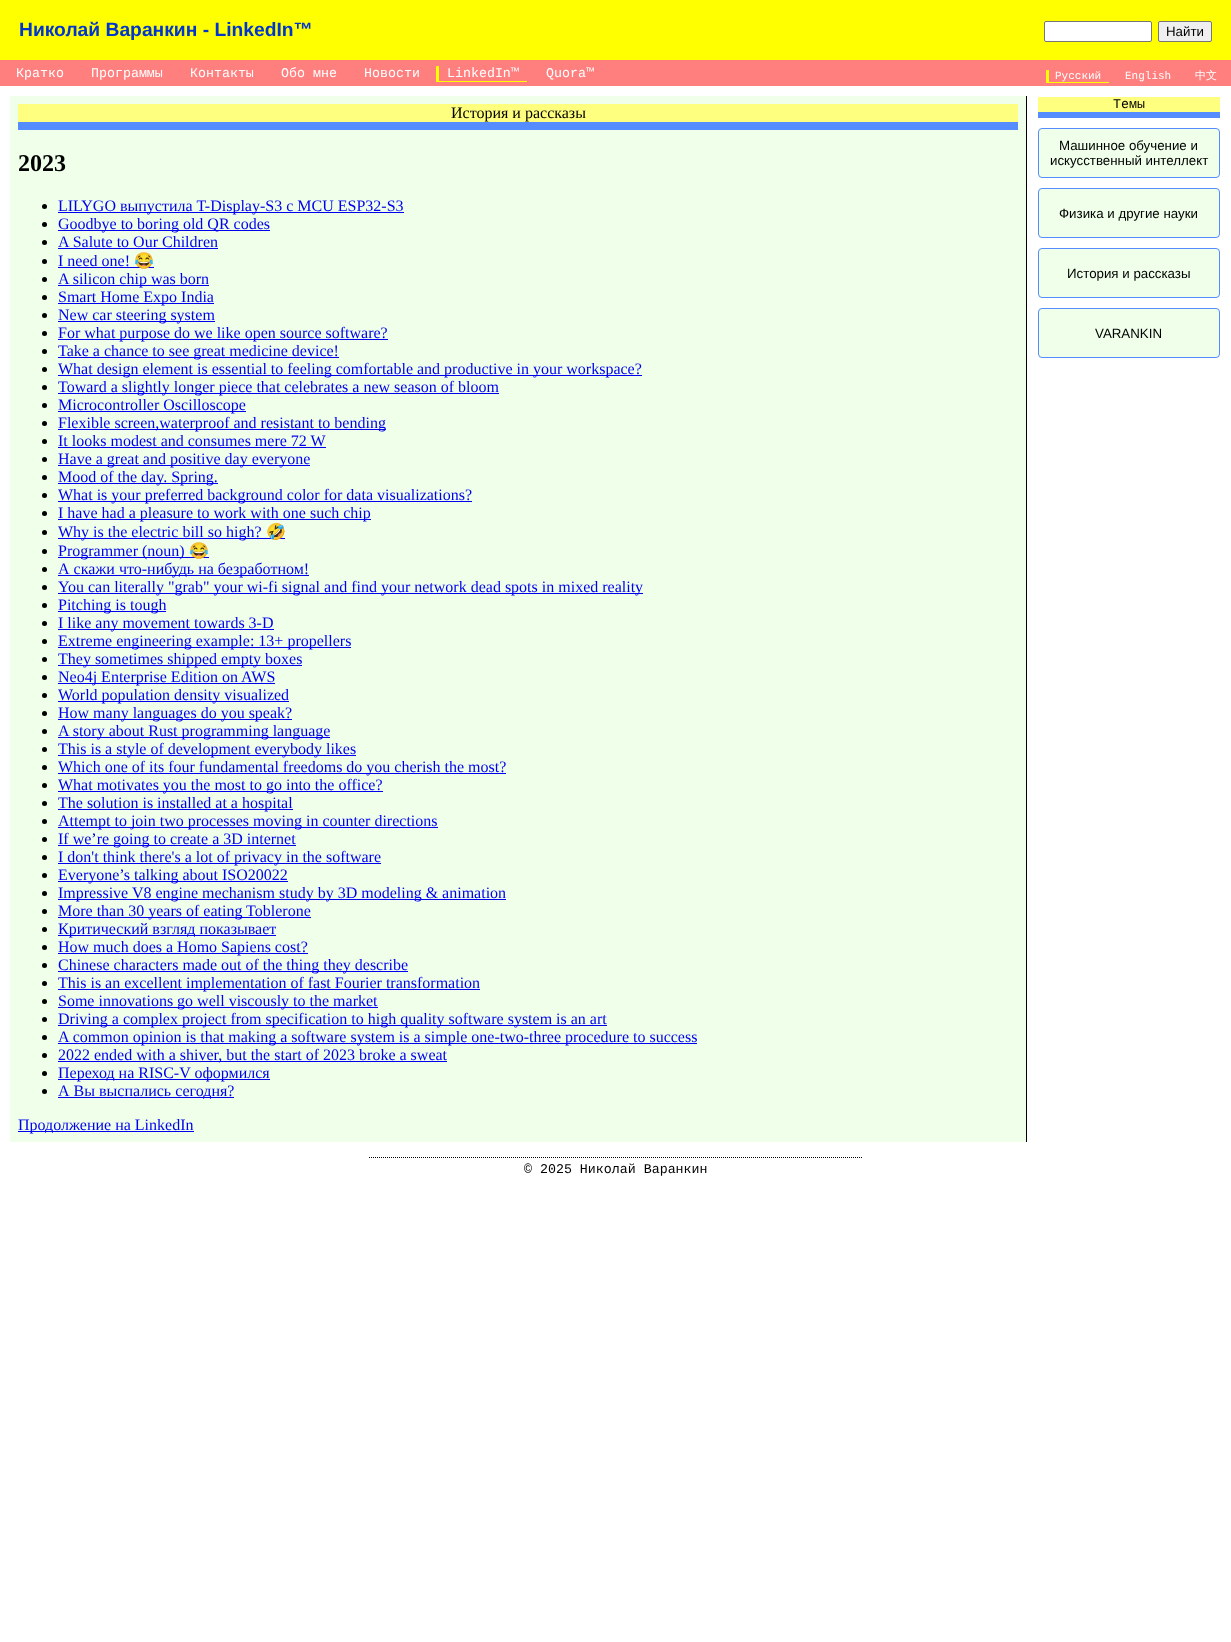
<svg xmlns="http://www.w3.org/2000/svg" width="1231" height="1642">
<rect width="100%" height="100%" fill="#fff"/>
<rect width="1231" height="60" fill="#ff0"/>
<text x="19" y="36" style="font-family:Liberation Sans;font-size:19.25px;font-weight:bold;fill:#0036cc">Николай Варанкин - LinkedIn™</text>
<rect x="1044.5" y="21.5" width="107" height="20" rx="1.5" fill="#fff" stroke="#767676"/>
<rect x="1158.5" y="21.5" width="53" height="20" rx="1.5" fill="#efefef" stroke="#767676"/>
<text x="1166" y="36" style="font-family:Liberation Sans;font-size:13.3px;fill:#000">Найти</text>
<rect y="60" width="1231" height="26" fill="#ff7f7f"/>
<text x="16" y="77" style="font-family:Liberation Mono;font-size:13.3px;fill:#fff">Кратко</text>
<text x="91" y="77" style="font-family:Liberation Mono;font-size:13.3px;fill:#fff">Программы</text>
<text x="190" y="77" style="font-family:Liberation Mono;font-size:13.3px;fill:#fff">Контакты</text>
<text x="281" y="77" style="font-family:Liberation Mono;font-size:13.3px;fill:#fff">Обо мне</text>
<text x="364" y="77" style="font-family:Liberation Mono;font-size:13.3px;fill:#fff">Новости</text>
<text x="447" y="77" style="font-family:Liberation Mono;font-size:13.3px;fill:#fff">LinkedIn™</text>
<rect x="436" y="81" width="91" height="1" fill="#ff0"/>
<rect x="436" y="66" width="3" height="16" fill="#ff0"/>
<text x="546" y="77" style="font-family:Liberation Mono;font-size:13.3px;fill:#fff">Quora™</text>
<text x="1055" y="79" style="font-family:Liberation Mono;font-size:11px;fill:#fff">Русский</text>
<rect x="1046" y="82" width="63" height="1" fill="#ff0"/>
<rect x="1046" y="70" width="3" height="13" fill="#ff0"/>
<text x="1125" y="79" style="font-family:Liberation Mono;font-size:11px;fill:#fff">English</text>
<text x="1195" y="79" style="font-family:WenQuanYi Zen Hei;font-size:11px;font-weight:500;fill:#fff">中文</text>
<rect x="10" y="96" width="1016" height="1046" fill="#efffea"/>
<rect x="1026" y="96" width="1" height="1046" fill="#000"/>
<rect x="18" y="104" width="1000" height="18" fill="#ffff7f"/>
<rect x="18" y="122" width="1000" height="8" fill="#558cff"/>
<text x="451" y="118" style="font-family:Liberation Serif;font-size:16px;fill:#000">История и рассказы</text>
<text x="18" y="171" style="font-family:Liberation Serif;font-size:24px;font-weight:bold;fill:#000">2023</text>
<circle cx="44.5" cy="206.5" r="2.5" fill="#000"/>
<rect x="58" y="212" width="346" height="1" fill="#00e"/>
<text x="58" y="211" style="font-family:Liberation Serif;font-size:16px;fill:#00e">LILYGO выпустила T-Display-S3 с MCU ESP32-S3</text>
<circle cx="44.5" cy="224.5" r="2.5" fill="#000"/>
<rect x="58" y="230" width="212" height="1" fill="#00e"/>
<text x="58" y="229" style="font-family:Liberation Serif;font-size:16px;fill:#00e">Goodbye to boring old QR codes</text>
<circle cx="44.5" cy="242.5" r="2.5" fill="#000"/>
<text x="58" y="247" style="font-family:Liberation Serif;font-size:16px;fill:#00e">A Salute to Our Children</text>
<rect x="58" y="248" width="160" height="1" fill="#00e"/>
<circle cx="44.5" cy="261.5" r="2.5" fill="#000"/>
<text x="58" y="266" style="font-family:Liberation Serif;font-size:16px;fill:#00e">I need one!</text>
<rect x="58" y="267" width="96" height="1" fill="#00e"/>
<text x="134" y="266" style="font-family:Noto Color Emoji;font-size:16px;fill:#00e">😂</text>
<circle cx="44.5" cy="279.5" r="2.5" fill="#000"/>
<rect x="58" y="285" width="151" height="1" fill="#00e"/>
<text x="58" y="284" style="font-family:Liberation Serif;font-size:16px;fill:#00e">A silicon chip was born</text>
<circle cx="44.5" cy="297.5" r="2.5" fill="#000"/>
<rect x="58" y="303" width="156" height="1" fill="#00e"/>
<text x="58" y="302" style="font-family:Liberation Serif;font-size:16px;fill:#00e">Smart Home Expo India</text>
<circle cx="44.5" cy="315.5" r="2.5" fill="#000"/>
<rect x="58" y="321" width="157" height="1" fill="#00e"/>
<text x="58" y="320" style="font-family:Liberation Serif;font-size:16px;fill:#00e">New car steering system</text>
<circle cx="44.5" cy="333.5" r="2.5" fill="#000"/>
<rect x="58" y="339" width="330" height="1" fill="#00e"/>
<text x="58" y="338" style="font-family:Liberation Serif;font-size:16px;fill:#00e">For what purpose do we like open source software?</text>
<circle cx="44.5" cy="351.5" r="2.5" fill="#000"/>
<rect x="58" y="357" width="281" height="1" fill="#00e"/>
<text x="58" y="356" style="font-family:Liberation Serif;font-size:16px;fill:#00e">Take a chance to see great medicine device!</text>
<circle cx="44.5" cy="369.5" r="2.5" fill="#000"/>
<rect x="58" y="375" width="584" height="1" fill="#00e"/>
<text x="58" y="374" style="font-family:Liberation Serif;font-size:16px;fill:#00e">What design element is essential to feeling comfortable and productive in your workspace?</text>
<circle cx="44.5" cy="387.5" r="2.5" fill="#000"/>
<rect x="58" y="393" width="441" height="1" fill="#00e"/>
<text x="58" y="392" style="font-family:Liberation Serif;font-size:16px;fill:#00e">Toward a slightly longer piece that celebrates a new season of bloom</text>
<circle cx="44.5" cy="405.5" r="2.5" fill="#000"/>
<rect x="58" y="411" width="188" height="1" fill="#00e"/>
<text x="58" y="410" style="font-family:Liberation Serif;font-size:16px;fill:#00e">Microcontroller Oscilloscope</text>
<circle cx="44.5" cy="423.5" r="2.5" fill="#000"/>
<rect x="58" y="429" width="328" height="1" fill="#00e"/>
<text x="58" y="428" style="font-family:Liberation Serif;font-size:16px;fill:#00e">Flexible screen,waterproof and resistant to bending</text>
<circle cx="44.5" cy="441.5" r="2.5" fill="#000"/>
<text x="58" y="446" style="font-family:Liberation Serif;font-size:16px;fill:#00e">It looks modest and consumes mere 72 W</text>
<rect x="58" y="447" width="268" height="1" fill="#00e"/>
<circle cx="44.5" cy="459.5" r="2.5" fill="#000"/>
<rect x="58" y="465" width="252" height="1" fill="#00e"/>
<text x="58" y="464" style="font-family:Liberation Serif;font-size:16px;fill:#00e">Have a great and positive day everyone</text>
<circle cx="44.5" cy="477.5" r="2.5" fill="#000"/>
<rect x="58" y="483" width="160" height="1" fill="#00e"/>
<text x="58" y="482" style="font-family:Liberation Serif;font-size:16px;fill:#00e">Mood of the day. Spring.</text>
<circle cx="44.5" cy="495.5" r="2.5" fill="#000"/>
<rect x="58" y="501" width="414" height="1" fill="#00e"/>
<text x="58" y="500" style="font-family:Liberation Serif;font-size:16px;fill:#00e">What is your preferred background color for data visualizations?</text>
<circle cx="44.5" cy="513.5" r="2.5" fill="#000"/>
<rect x="58" y="519" width="313" height="1" fill="#00e"/>
<text x="58" y="518" style="font-family:Liberation Serif;font-size:16px;fill:#00e">I have had a pleasure to work with one such chip</text>
<circle cx="44.5" cy="532.5" r="2.5" fill="#000"/>
<rect x="58" y="538" width="227" height="1" fill="#00e"/>
<text x="58" y="537" style="font-family:Liberation Serif;font-size:16px;fill:#00e">Why is the electric bill so high?</text>
<text x="266" y="537" style="font-family:Noto Color Emoji;font-size:16px;fill:#00e">🤣</text>
<circle cx="44.5" cy="551.5" r="2.5" fill="#000"/>
<rect x="58" y="557" width="151" height="1" fill="#00e"/>
<text x="58" y="556" style="font-family:Liberation Serif;font-size:16px;fill:#00e">Programmer (noun)</text>
<text x="189" y="556" style="font-family:Noto Color Emoji;font-size:16px;fill:#00e">😂</text>
<circle cx="44.5" cy="569.5" r="2.5" fill="#000"/>
<rect x="58" y="575" width="251" height="1" fill="#00e"/>
<text x="58" y="574" style="font-family:Liberation Serif;font-size:16px;fill:#00e">А скажи что-нибудь на безработном!</text>
<circle cx="44.5" cy="587.5" r="2.5" fill="#000"/>
<rect x="58" y="593" width="585" height="1" fill="#00e"/>
<text x="58" y="592" style="font-family:Liberation Serif;font-size:16px;fill:#00e">You can literally "grab" your wi-fi signal and find your network dead spots in mixed reality</text>
<circle cx="44.5" cy="605.5" r="2.5" fill="#000"/>
<rect x="58" y="611" width="108" height="1" fill="#00e"/>
<text x="58" y="610" style="font-family:Liberation Serif;font-size:16px;fill:#00e">Pitching is tough</text>
<circle cx="44.5" cy="623.5" r="2.5" fill="#000"/>
<rect x="58" y="629" width="216" height="1" fill="#00e"/>
<text x="58" y="628" style="font-family:Liberation Serif;font-size:16px;fill:#00e">I like any movement towards 3-D</text>
<circle cx="44.5" cy="641.5" r="2.5" fill="#000"/>
<rect x="58" y="647" width="293" height="1" fill="#00e"/>
<text x="58" y="646" style="font-family:Liberation Serif;font-size:16px;fill:#00e">Extreme engineering example: 13+ propellers</text>
<circle cx="44.5" cy="659.5" r="2.5" fill="#000"/>
<rect x="58" y="665" width="244" height="1" fill="#00e"/>
<text x="58" y="664" style="font-family:Liberation Serif;font-size:16px;fill:#00e">They sometimes shipped empty boxes</text>
<circle cx="44.5" cy="677.5" r="2.5" fill="#000"/>
<rect x="58" y="683" width="217" height="1" fill="#00e"/>
<text x="58" y="682" style="font-family:Liberation Serif;font-size:16px;fill:#00e">Neo4j Enterprise Edition on AWS</text>
<circle cx="44.5" cy="695.5" r="2.5" fill="#000"/>
<rect x="58" y="701" width="231" height="1" fill="#00e"/>
<text x="58" y="700" style="font-family:Liberation Serif;font-size:16px;fill:#00e">World population density visualized</text>
<circle cx="44.5" cy="713.5" r="2.5" fill="#000"/>
<rect x="58" y="719" width="234" height="1" fill="#00e"/>
<text x="58" y="718" style="font-family:Liberation Serif;font-size:16px;fill:#00e">How many languages do you speak?</text>
<circle cx="44.5" cy="731.5" r="2.5" fill="#000"/>
<rect x="58" y="737" width="272" height="1" fill="#00e"/>
<text x="58" y="736" style="font-family:Liberation Serif;font-size:16px;fill:#00e">A story about Rust programming language</text>
<circle cx="44.5" cy="749.5" r="2.5" fill="#000"/>
<rect x="58" y="755" width="298" height="1" fill="#00e"/>
<text x="58" y="754" style="font-family:Liberation Serif;font-size:16px;fill:#00e">This is a style of development everybody likes</text>
<circle cx="44.5" cy="767.5" r="2.5" fill="#000"/>
<rect x="58" y="773" width="448" height="1" fill="#00e"/>
<text x="58" y="772" style="font-family:Liberation Serif;font-size:16px;fill:#00e">Which one of its four fundamental freedoms do you cherish the most?</text>
<circle cx="44.5" cy="785.5" r="2.5" fill="#000"/>
<rect x="58" y="791" width="325" height="1" fill="#00e"/>
<text x="58" y="790" style="font-family:Liberation Serif;font-size:16px;fill:#00e">What motivates you the most to go into the office?</text>
<circle cx="44.5" cy="803.5" r="2.5" fill="#000"/>
<rect x="58" y="809" width="235" height="1" fill="#00e"/>
<text x="58" y="808" style="font-family:Liberation Serif;font-size:16px;fill:#00e">The solution is installed at a hospital</text>
<circle cx="44.5" cy="821.5" r="2.5" fill="#000"/>
<rect x="58" y="827" width="380" height="1" fill="#00e"/>
<text x="58" y="826" style="font-family:Liberation Serif;font-size:16px;fill:#00e">Attempt to join two processes moving in counter directions</text>
<circle cx="44.5" cy="839.5" r="2.5" fill="#000"/>
<rect x="58" y="845" width="238" height="1" fill="#00e"/>
<text x="58" y="844" style="font-family:Liberation Serif;font-size:16px;fill:#00e">If we’re going to create a 3D internet</text>
<circle cx="44.5" cy="857.5" r="2.5" fill="#000"/>
<rect x="58" y="863" width="323" height="1" fill="#00e"/>
<text x="58" y="862" style="font-family:Liberation Serif;font-size:16px;fill:#00e">I don't think there's a lot of privacy in the software</text>
<circle cx="44.5" cy="875.5" r="2.5" fill="#000"/>
<rect x="58" y="881" width="230" height="1" fill="#00e"/>
<text x="58" y="880" style="font-family:Liberation Serif;font-size:16px;fill:#00e">Everyone’s talking about ISO20022</text>
<circle cx="44.5" cy="893.5" r="2.5" fill="#000"/>
<rect x="58" y="899" width="448" height="1" fill="#00e"/>
<text x="58" y="898" style="font-family:Liberation Serif;font-size:16px;fill:#00e">Impressive V8 engine mechanism study by 3D modeling &amp; animation</text>
<circle cx="44.5" cy="911.5" r="2.5" fill="#000"/>
<rect x="58" y="917" width="253" height="1" fill="#00e"/>
<text x="58" y="916" style="font-family:Liberation Serif;font-size:16px;fill:#00e">More than 30 years of eating Toblerone</text>
<circle cx="44.5" cy="929.5" r="2.5" fill="#000"/>
<rect x="58" y="935" width="218" height="1" fill="#00e"/>
<text x="58" y="934" style="font-family:Liberation Serif;font-size:16px;fill:#00e">Критический взгляд показывает</text>
<circle cx="44.5" cy="947.5" r="2.5" fill="#000"/>
<rect x="58" y="953" width="250" height="1" fill="#00e"/>
<text x="58" y="952" style="font-family:Liberation Serif;font-size:16px;fill:#00e">How much does a Homo Sapiens cost?</text>
<circle cx="44.5" cy="965.5" r="2.5" fill="#000"/>
<rect x="58" y="971" width="350" height="1" fill="#00e"/>
<text x="58" y="970" style="font-family:Liberation Serif;font-size:16px;fill:#00e">Chinese characters made out of the thing they describe</text>
<circle cx="44.5" cy="983.5" r="2.5" fill="#000"/>
<rect x="58" y="989" width="422" height="1" fill="#00e"/>
<text x="58" y="988" style="font-family:Liberation Serif;font-size:16px;fill:#00e">This is an excellent implementation of fast Fourier transformation</text>
<circle cx="44.5" cy="1001.5" r="2.5" fill="#000"/>
<rect x="58" y="1007" width="320" height="1" fill="#00e"/>
<text x="58" y="1006" style="font-family:Liberation Serif;font-size:16px;fill:#00e">Some innovations go well viscously to the market</text>
<circle cx="44.5" cy="1019.5" r="2.5" fill="#000"/>
<rect x="58" y="1025" width="549" height="1" fill="#00e"/>
<text x="58" y="1024" style="font-family:Liberation Serif;font-size:16px;fill:#00e">Driving a complex project from specification to high quality software system is an art</text>
<circle cx="44.5" cy="1037.5" r="2.5" fill="#000"/>
<rect x="58" y="1043" width="639" height="1" fill="#00e"/>
<text x="58" y="1042" style="font-family:Liberation Serif;font-size:16px;fill:#00e">A common opinion is that making a software system is a simple one-two-three procedure to success</text>
<circle cx="44.5" cy="1055.5" r="2.5" fill="#000"/>
<rect x="58" y="1061" width="389" height="1" fill="#00e"/>
<text x="58" y="1060" style="font-family:Liberation Serif;font-size:16px;fill:#00e">2022 ended with a shiver, but the start of 2023 broke a sweat</text>
<circle cx="44.5" cy="1073.5" r="2.5" fill="#000"/>
<rect x="58" y="1079" width="212" height="1" fill="#00e"/>
<text x="58" y="1078" style="font-family:Liberation Serif;font-size:16px;fill:#00e">Переход на RISC-V оформился</text>
<circle cx="44.5" cy="1091.5" r="2.5" fill="#000"/>
<rect x="58" y="1097" width="176" height="1" fill="#00e"/>
<text x="58" y="1096" style="font-family:Liberation Serif;font-size:16px;fill:#00e">А Вы выспались сегодня?</text>
<rect x="18" y="1131" width="176" height="1" fill="#00e"/>
<text x="18" y="1130" style="font-family:Liberation Serif;font-size:16px;fill:#00e">Продолжение на LinkedIn</text>
<rect x="1038" y="97" width="182" height="15" fill="#ffff7f"/>
<rect x="1038" y="112" width="182" height="6" fill="#558cff"/>
<text x="1113" y="108" style="font-family:Liberation Mono;font-size:13.3px;fill:#000">Темы</text>
<rect x="1038.5" y="128.5" width="181" height="49" rx="3.5" fill="#efffea" stroke="#558cff"/>
<text x="1059" y="150" style="font-family:Liberation Sans;font-size:13.3px;fill:#000">Машинное обучение и</text>
<text x="1050" y="165" style="font-family:Liberation Sans;font-size:13.3px;fill:#000">искусственный интеллект</text>
<rect x="1038.5" y="188.5" width="181" height="49" rx="3.5" fill="#efffea" stroke="#558cff"/>
<text x="1059" y="218" style="font-family:Liberation Sans;font-size:13.3px;fill:#000">Физика и другие науки</text>
<rect x="1038.5" y="248.5" width="181" height="49" rx="3.5" fill="#efffea" stroke="#558cff"/>
<text x="1067" y="278" style="font-family:Liberation Sans;font-size:13.3px;fill:#000">История и рассказы</text>
<rect x="1038.5" y="308.5" width="181" height="49" rx="3.5" fill="#efffea" stroke="#558cff"/>
<text x="1095" y="338" style="font-family:Liberation Sans;font-size:13.3px;fill:#000">VARANKIN</text>
<path d="M369 1157.5h493" fill="none" stroke="#000" stroke-dasharray="1 1"/>
<text x="524" y="1173" style="font-family:Liberation Mono;font-size:13.3px;fill:#000">© 2025 Николай Варанкин</text>
</svg>
